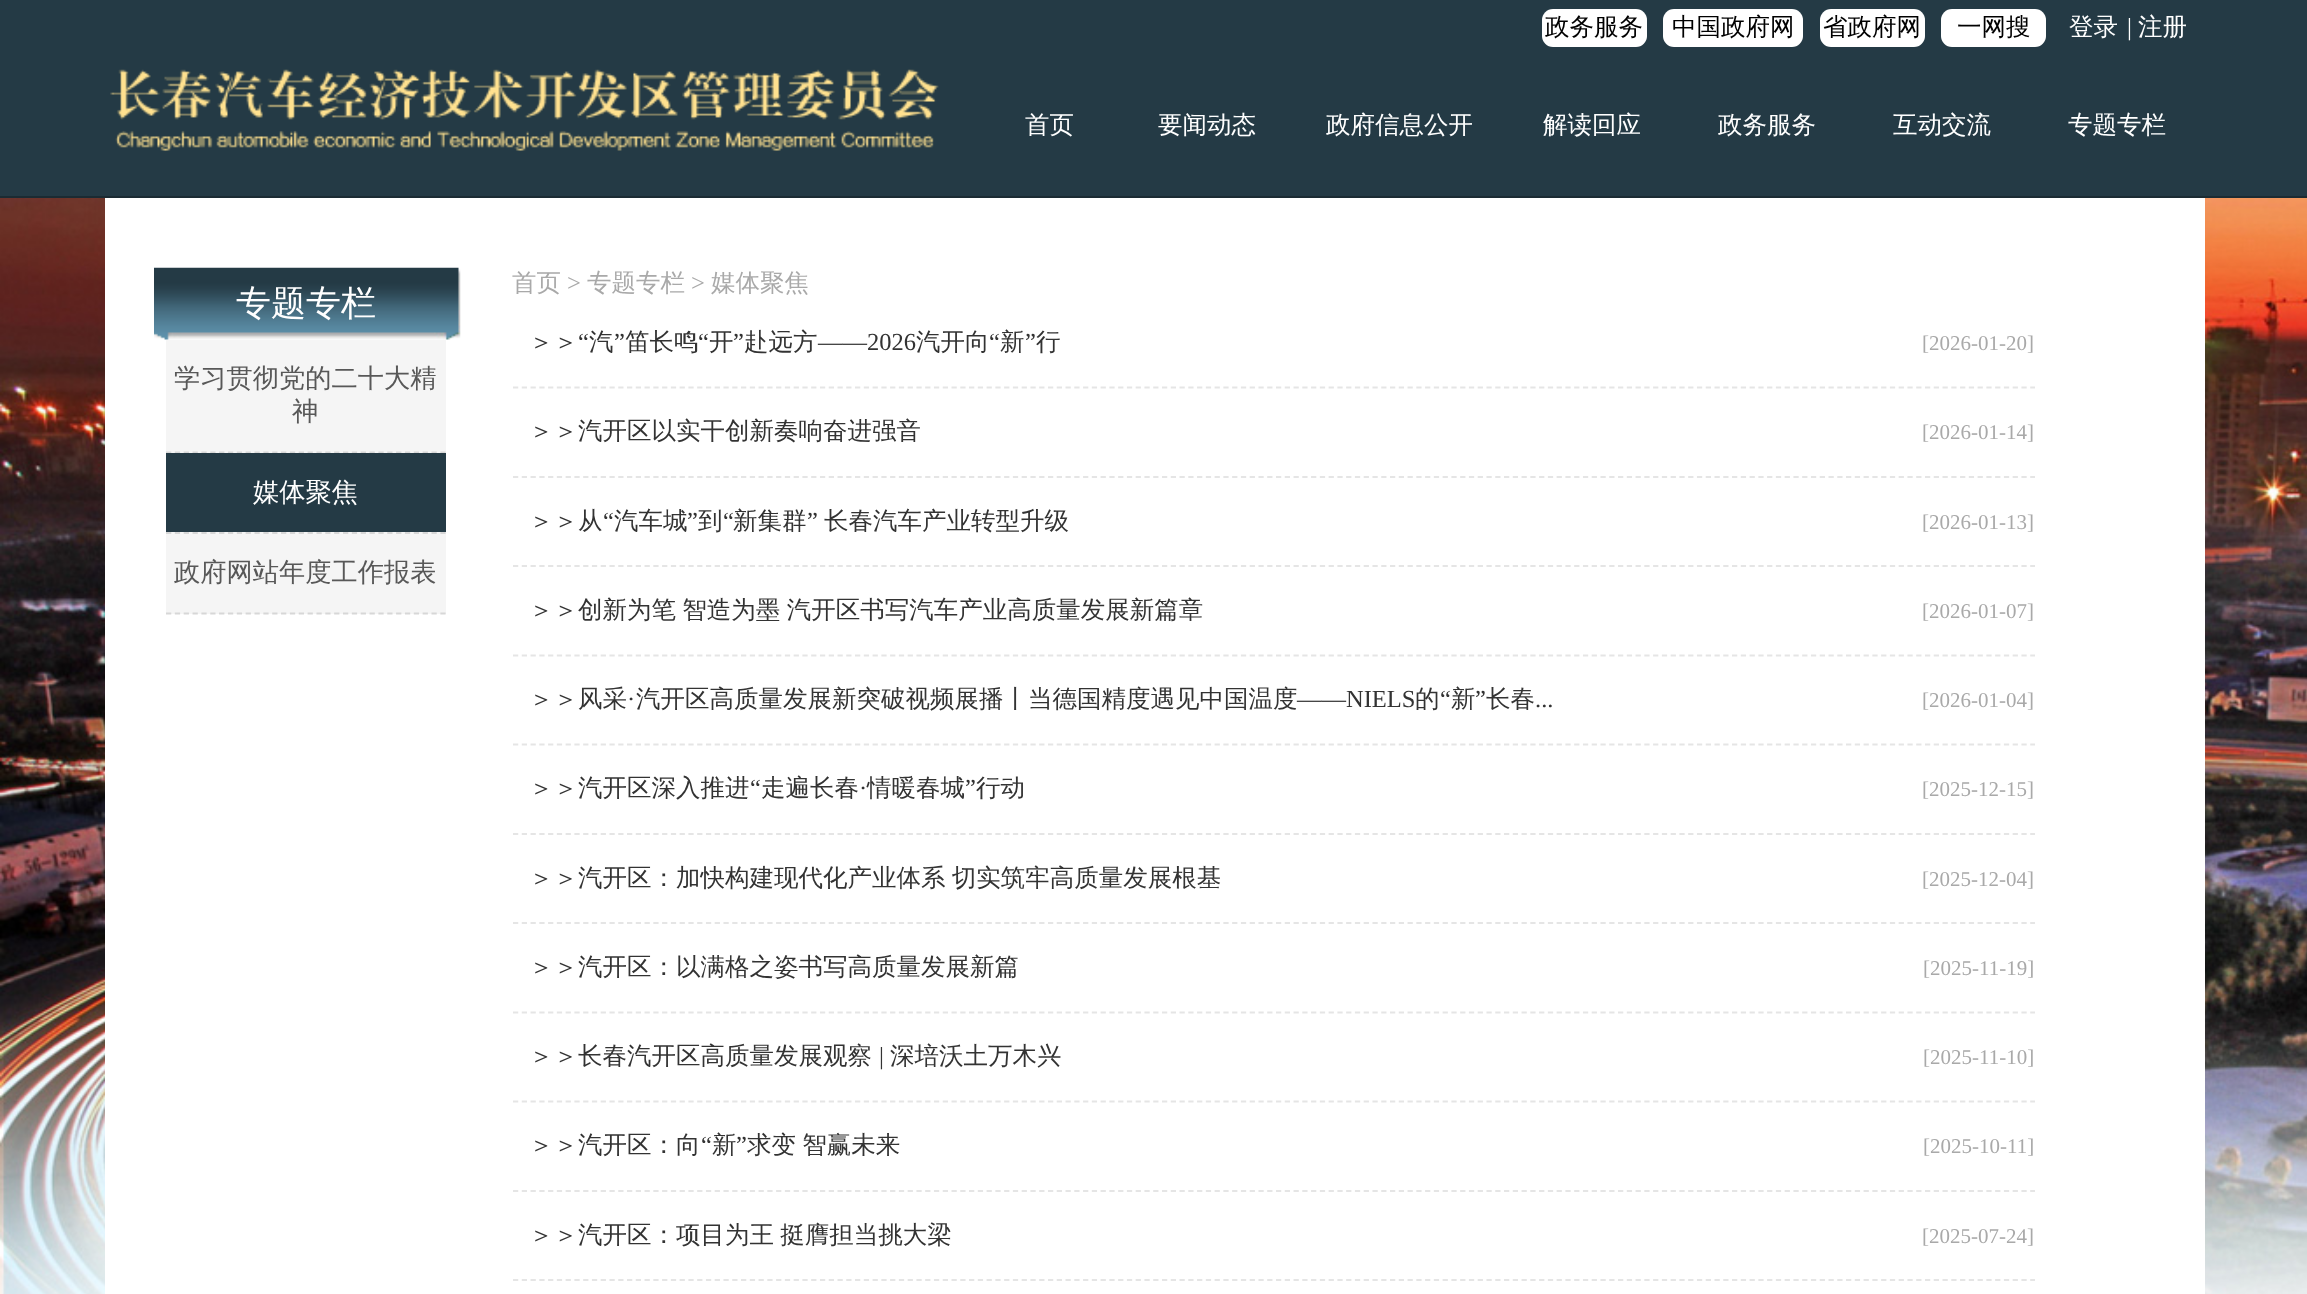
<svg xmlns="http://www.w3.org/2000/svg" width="2307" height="1294">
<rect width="100%" height="100%" fill="#fff"/>
<image x="0" y="198" width="2307" height="1096" href="media/1.png"/>
<rect width="2307" height="196" fill="#243a45"/>
<rect y="196" width="2307" height="2" fill="#1b2b33"/>
<rect x="1542" y="9" width="105" height="38" rx="11" fill="#fff"/>
<text x="1545" y="35" style="font-family:WenQuanYi Zen Hei;font-size:24.5px;font-weight:500;fill:#000">政务服务</text>
<rect x="1663" y="9" width="140" height="38" rx="11" fill="#fff"/>
<text x="1672" y="35" style="font-family:WenQuanYi Zen Hei;font-size:24.5px;font-weight:500;fill:#000">中国政府网</text>
<rect x="1820" y="9" width="105" height="38" rx="11" fill="#fff"/>
<text x="1823" y="35" style="font-family:WenQuanYi Zen Hei;font-size:24.5px;font-weight:500;fill:#000">省政府网</text>
<rect x="1941" y="9" width="105" height="38" rx="11" fill="#fff"/>
<text x="1957" y="35" style="font-family:WenQuanYi Zen Hei;font-size:24.5px;font-weight:500;fill:#000">一网搜</text>
<text x="2069" y="35" style="font-family:WenQuanYi Zen Hei;font-size:24.5px;font-weight:500;fill:#fff">登录</text>
<text x="2127" y="35" style="font-family:Liberation Serif;font-size:24.5px;fill:#fff">|</text>
<text x="2138" y="35" style="font-family:WenQuanYi Zen Hei;font-size:24.5px;font-weight:500;fill:#fff">注册</text>
<image x="110" y="69" width="829" height="82" href="media/2.png"/>
<text x="1025" y="133" style="font-family:WenQuanYi Zen Hei;font-size:24.5px;font-weight:500;fill:#fff">首页</text>
<text x="1158" y="133" style="font-family:WenQuanYi Zen Hei;font-size:24.5px;font-weight:500;fill:#fff">要闻动态</text>
<text x="1326" y="133" style="font-family:WenQuanYi Zen Hei;font-size:24.5px;font-weight:500;fill:#fff">政府信息公开</text>
<text x="1543" y="133" style="font-family:WenQuanYi Zen Hei;font-size:24.5px;font-weight:500;fill:#fff">解读回应</text>
<text x="1718" y="133" style="font-family:WenQuanYi Zen Hei;font-size:24.5px;font-weight:500;fill:#fff">政务服务</text>
<text x="1893" y="133" style="font-family:WenQuanYi Zen Hei;font-size:24.5px;font-weight:500;fill:#fff">互动交流</text>
<text x="2068" y="133" style="font-family:WenQuanYi Zen Hei;font-size:24.5px;font-weight:500;fill:#fff">专题专栏</text>
<rect x="105" y="198" width="2100" height="1096" fill="#fff"/>
<image x="154" y="267" width="307" height="73" href="media/3.png"/>
<text x="236" y="315" style="font-family:WenQuanYi Zen Hei;font-size:35px;font-weight:500;fill:#fff">专题专栏</text>
<rect x="166" y="340" width="280" height="113" fill="#f5f5f5"/>
<path d="M166 452.5h280" fill="none" stroke="#d7d7d7" stroke-width="1.8" stroke-dasharray="5.25 3.6"/>
<text x="174" y="387" style="font-family:WenQuanYi Zen Hei;font-size:26.25px;font-weight:500;fill:#585858">学习贯彻党的二十大精</text>
<text x="292" y="420" style="font-family:WenQuanYi Zen Hei;font-size:26.25px;font-weight:500;fill:#585858">神</text>
<rect x="166" y="532" width="280" height="82" fill="#f5f5f5"/>
<path d="M166 533h280" fill="none" stroke="#d7d7d7" stroke-width="1.8" stroke-dasharray="5.25 3.6"/>
<rect x="166" y="453" width="280" height="79" fill="#243a45"/>
<text x="253" y="501" style="font-family:WenQuanYi Zen Hei;font-size:26.25px;font-weight:500;fill:#fff">媒体聚焦</text>
<path d="M166 613.5h280" fill="none" stroke="#d7d7d7" stroke-width="1.8" stroke-dasharray="5.25 3.6"/>
<text x="174" y="581" style="font-family:WenQuanYi Zen Hei;font-size:26.25px;font-weight:500;fill:#585858">政府网站年度工作报表</text>
<text x="512" y="291" style="font-family:WenQuanYi Zen Hei;font-size:24.5px;font-weight:500;fill:#a9a9a9">首页</text>
<text x="567" y="291" style="font-family:Liberation Serif;font-size:24.5px;fill:#a9a9a9">&gt;</text>
<text x="587" y="291" style="font-family:WenQuanYi Zen Hei;font-size:24.5px;font-weight:500;fill:#a9a9a9">专题专栏</text>
<text x="691" y="291" style="font-family:Liberation Serif;font-size:24.5px;fill:#a9a9a9">&gt;</text>
<text x="711" y="291" style="font-family:WenQuanYi Zen Hei;font-size:24.5px;font-weight:500;fill:#a9a9a9">媒体聚焦</text>
<path d="M513 387.5h1522" fill="none" stroke="#e5e5e5" stroke-width="1.8" stroke-dasharray="5.25 3.52"/>
<text x="529" y="350" style="font-family:WenQuanYi Zen Hei;font-size:24.5px;font-weight:500;fill:#333">＞＞</text>
<text x="578" y="350" style="font-family:Liberation Serif;font-size:24.5px;fill:#333">“</text>
<text x="589" y="350" style="font-family:WenQuanYi Zen Hei;font-size:24.5px;font-weight:500;fill:#333">汽</text>
<text x="614" y="350" style="font-family:Liberation Serif;font-size:24.5px;fill:#333">”</text>
<text x="625" y="350" style="font-family:WenQuanYi Zen Hei;font-size:24.5px;font-weight:500;fill:#333">笛长鸣</text>
<text x="698" y="350" style="font-family:Liberation Serif;font-size:24.5px;fill:#333">“</text>
<text x="709" y="350" style="font-family:WenQuanYi Zen Hei;font-size:24.5px;font-weight:500;fill:#333">开</text>
<text x="733" y="350" style="font-family:Liberation Serif;font-size:24.5px;fill:#333">”</text>
<text x="744" y="350" style="font-family:WenQuanYi Zen Hei;font-size:24.5px;font-weight:500;fill:#333">赴远方</text>
<text x="818" y="350" style="font-family:Liberation Serif;font-size:24.5px;fill:#333">——2026</text>
<text x="916" y="350" style="font-family:WenQuanYi Zen Hei;font-size:24.5px;font-weight:500;fill:#333">汽开向</text>
<text x="989" y="350" style="font-family:Liberation Serif;font-size:24.5px;fill:#333">“</text>
<text x="1000" y="350" style="font-family:WenQuanYi Zen Hei;font-size:24.5px;font-weight:500;fill:#333">新</text>
<text x="1025" y="350" style="font-family:Liberation Serif;font-size:24.5px;fill:#333">”</text>
<text x="1036" y="350" style="font-family:WenQuanYi Zen Hei;font-size:24.5px;font-weight:500;fill:#333">行</text>
<text x="1922" y="350" style="font-family:Liberation Serif;font-size:21px;fill:#a9a9a9">[2026-01-20]</text>
<path d="M513 477h1522" fill="none" stroke="#e5e5e5" stroke-width="1.8" stroke-dasharray="5.25 3.52"/>
<text x="529" y="439" style="font-family:WenQuanYi Zen Hei;font-size:24.5px;font-weight:500;fill:#333">＞＞汽开区以实干创新奏响奋进强音</text>
<text x="1922" y="439" style="font-family:Liberation Serif;font-size:21px;fill:#a9a9a9">[2026-01-14]</text>
<path d="M513 566h1522" fill="none" stroke="#e5e5e5" stroke-width="1.8" stroke-dasharray="5.25 3.52"/>
<text x="529" y="529" style="font-family:WenQuanYi Zen Hei;font-size:24.5px;font-weight:500;fill:#333">＞＞从</text>
<text x="603" y="529" style="font-family:Liberation Serif;font-size:24.5px;fill:#333">“</text>
<text x="614" y="529" style="font-family:WenQuanYi Zen Hei;font-size:24.5px;font-weight:500;fill:#333">汽车城</text>
<text x="687" y="529" style="font-family:Liberation Serif;font-size:24.5px;fill:#333">”</text>
<text x="698" y="529" style="font-family:WenQuanYi Zen Hei;font-size:24.5px;font-weight:500;fill:#333">到</text>
<text x="723" y="529" style="font-family:Liberation Serif;font-size:24.5px;fill:#333">“</text>
<text x="733" y="529" style="font-family:WenQuanYi Zen Hei;font-size:24.5px;font-weight:500;fill:#333">新集群</text>
<text x="807" y="529" style="font-family:Liberation Serif;font-size:24.5px;fill:#333">”</text>
<text x="824" y="529" style="font-family:WenQuanYi Zen Hei;font-size:24.5px;font-weight:500;fill:#333">长春汽车产业转型升级</text>
<text x="1922" y="529" style="font-family:Liberation Serif;font-size:21px;fill:#a9a9a9">[2026-01-13]</text>
<path d="M513 655.5h1522" fill="none" stroke="#e5e5e5" stroke-width="1.8" stroke-dasharray="5.25 3.52"/>
<text x="529" y="618" word-spacing="-1" style="font-family:WenQuanYi Zen Hei;font-size:24.5px;font-weight:500;fill:#333">＞＞创新为笔 智造为墨 汽开区书写汽车产业高质量发展新篇章</text>
<text x="1922" y="618" style="font-family:Liberation Serif;font-size:21px;fill:#a9a9a9">[2026-01-07]</text>
<path d="M513 744.5h1522" fill="none" stroke="#e5e5e5" stroke-width="1.8" stroke-dasharray="5.25 3.52"/>
<text x="529" y="707" style="font-family:WenQuanYi Zen Hei;font-size:24.5px;font-weight:500;fill:#333">＞＞风采</text>
<text x="627" y="707" style="font-family:Liberation Serif;font-size:24.5px;fill:#333">·</text>
<text x="636" y="707" style="font-family:WenQuanYi Zen Hei;font-size:24.5px;font-weight:500;fill:#333">汽开区高质量发展新突破视频展播丨当德国精度遇见中国温度</text>
<text x="1297" y="707" style="font-family:Liberation Serif;font-size:24.5px;fill:#333">——NIELS</text>
<text x="1415" y="707" style="font-family:WenQuanYi Zen Hei;font-size:24.5px;font-weight:500;fill:#333">的</text>
<text x="1440" y="707" style="font-family:Liberation Serif;font-size:24.5px;fill:#333">“</text>
<text x="1451" y="707" style="font-family:WenQuanYi Zen Hei;font-size:24.5px;font-weight:500;fill:#333">新</text>
<text x="1475" y="707" style="font-family:Liberation Serif;font-size:24.5px;fill:#333">”</text>
<text x="1486" y="707" style="font-family:WenQuanYi Zen Hei;font-size:24.5px;font-weight:500;fill:#333">长春</text>
<text x="1922" y="707" style="font-family:Liberation Serif;font-size:21px;fill:#a9a9a9">[2026-01-04]</text>
<text x="1535" y="707" style="font-family:Liberation Serif;font-size:24.5px;fill:#333">...</text>
<path d="M513 834h1522" fill="none" stroke="#e5e5e5" stroke-width="1.8" stroke-dasharray="5.25 3.52"/>
<text x="529" y="796" style="font-family:WenQuanYi Zen Hei;font-size:24.5px;font-weight:500;fill:#333">＞＞汽开区深入推进</text>
<text x="750" y="796" style="font-family:Liberation Serif;font-size:24.5px;fill:#333">“</text>
<text x="761" y="796" style="font-family:WenQuanYi Zen Hei;font-size:24.5px;font-weight:500;fill:#333">走遍长春</text>
<text x="859" y="796" style="font-family:Liberation Serif;font-size:24.5px;fill:#333">·</text>
<text x="867" y="796" style="font-family:WenQuanYi Zen Hei;font-size:24.5px;font-weight:500;fill:#333">情暖春城</text>
<text x="965" y="796" style="font-family:Liberation Serif;font-size:24.5px;fill:#333">”</text>
<text x="976" y="796" style="font-family:WenQuanYi Zen Hei;font-size:24.5px;font-weight:500;fill:#333">行动</text>
<text x="1922" y="796" style="font-family:Liberation Serif;font-size:21px;fill:#a9a9a9">[2025-12-15]</text>
<path d="M513 923h1522" fill="none" stroke="#e5e5e5" stroke-width="1.8" stroke-dasharray="5.25 3.52"/>
<text x="529" y="886" word-spacing="-1" style="font-family:WenQuanYi Zen Hei;font-size:24.5px;font-weight:500;fill:#333">＞＞汽开区：加快构建现代化产业体系 切实筑牢高质量发展根基</text>
<text x="1922" y="886" style="font-family:Liberation Serif;font-size:21px;fill:#a9a9a9">[2025-12-04]</text>
<path d="M513 1012.5h1522" fill="none" stroke="#e5e5e5" stroke-width="1.8" stroke-dasharray="5.25 3.52"/>
<text x="529" y="975" style="font-family:WenQuanYi Zen Hei;font-size:24.5px;font-weight:500;fill:#333">＞＞汽开区：以满格之姿书写高质量发展新篇</text>
<text x="1923" y="975" style="font-family:Liberation Serif;font-size:21px;fill:#a9a9a9">[2025-11-19]</text>
<path d="M513 1101.5h1522" fill="none" stroke="#e5e5e5" stroke-width="1.8" stroke-dasharray="5.25 3.52"/>
<text x="529" y="1064" style="font-family:WenQuanYi Zen Hei;font-size:24.5px;font-weight:500;fill:#333">＞＞长春汽开区高质量发展观察</text>
<text x="879" y="1064" style="font-family:Liberation Serif;font-size:24.5px;fill:#333">|</text>
<text x="890" y="1064" style="font-family:WenQuanYi Zen Hei;font-size:24.5px;font-weight:500;fill:#333">深培沃土万木兴</text>
<text x="1923" y="1064" style="font-family:Liberation Serif;font-size:21px;fill:#a9a9a9">[2025-11-10]</text>
<path d="M513 1191h1522" fill="none" stroke="#e5e5e5" stroke-width="1.8" stroke-dasharray="5.25 3.52"/>
<text x="529" y="1153" style="font-family:WenQuanYi Zen Hei;font-size:24.5px;font-weight:500;fill:#333">＞＞汽开区：向</text>
<text x="701" y="1153" style="font-family:Liberation Serif;font-size:24.5px;fill:#333">“</text>
<text x="712" y="1153" style="font-family:WenQuanYi Zen Hei;font-size:24.5px;font-weight:500;fill:#333">新</text>
<text x="736" y="1153" style="font-family:Liberation Serif;font-size:24.5px;fill:#333">”</text>
<text x="747" y="1153" word-spacing="-1" style="font-family:WenQuanYi Zen Hei;font-size:24.5px;font-weight:500;fill:#333">求变 智赢未来</text>
<text x="1923" y="1153" style="font-family:Liberation Serif;font-size:21px;fill:#a9a9a9">[2025-10-11]</text>
<path d="M513 1280h1522" fill="none" stroke="#e5e5e5" stroke-width="1.8" stroke-dasharray="5.25 3.52"/>
<text x="529" y="1243" word-spacing="-1" style="font-family:WenQuanYi Zen Hei;font-size:24.5px;font-weight:500;fill:#333">＞＞汽开区：项目为王 挺膺担当挑大梁</text>
<text x="1922" y="1243" style="font-family:Liberation Serif;font-size:21px;fill:#a9a9a9">[2025-07-24]</text>
</svg>
